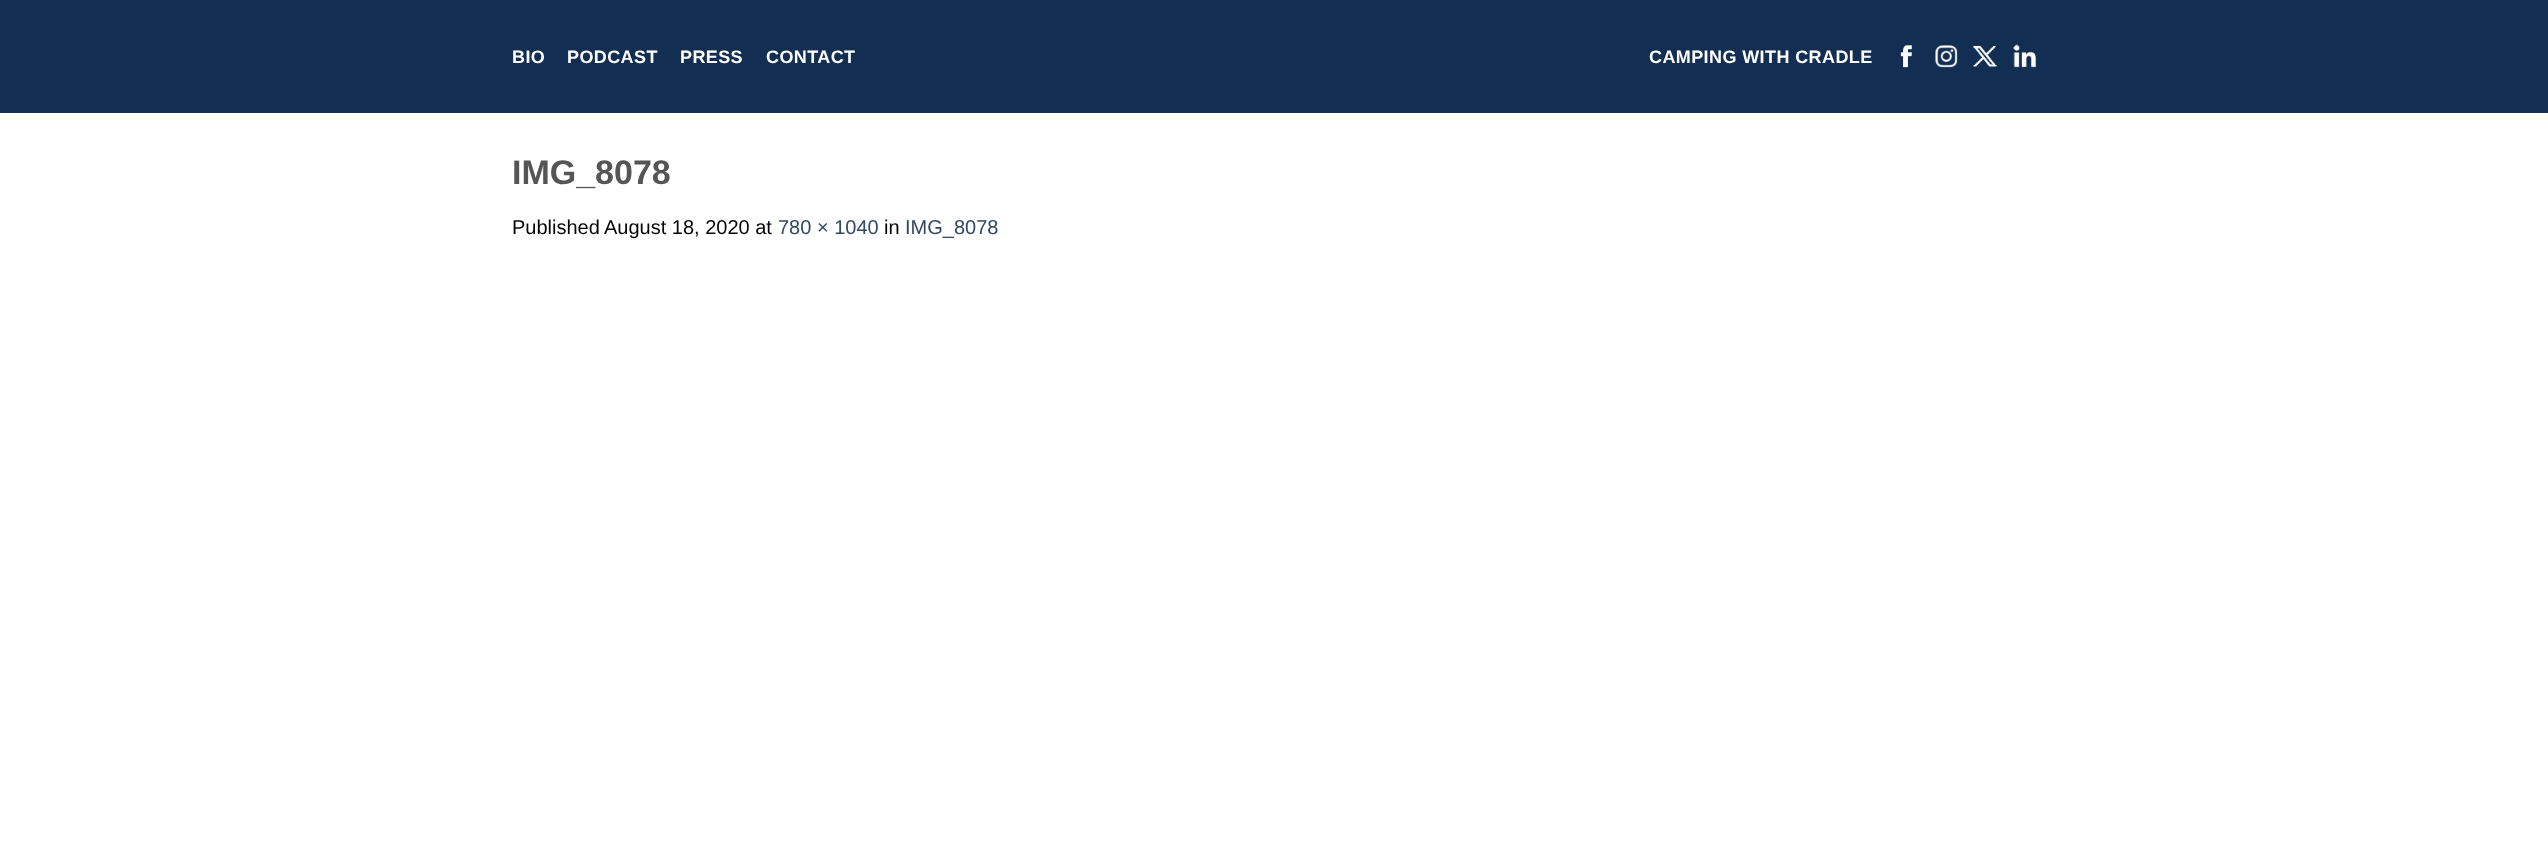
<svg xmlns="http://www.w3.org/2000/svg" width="2548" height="863">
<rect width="100%" height="100%" fill="#fff"/>
<rect width="2548" height="113" fill="#132e53"/>
<text x="512" y="63" style="font-family:Liberation Sans;font-size:18px;font-weight:bold;letter-spacing:0.4px;fill:#fff">BIO</text>
<text x="567" y="63" style="font-family:Liberation Sans;font-size:18px;font-weight:bold;letter-spacing:0.4px;fill:#fff">PODCAST</text>
<text x="680" y="63" style="font-family:Liberation Sans;font-size:18px;font-weight:bold;letter-spacing:0.4px;fill:#fff">PRESS</text>
<text x="766" y="63" style="font-family:Liberation Sans;font-size:18px;font-weight:bold;letter-spacing:0.4px;fill:#fff">CONTACT</text>
<text x="1649" y="63" style="font-family:Liberation Sans;font-size:18px;font-weight:bold;letter-spacing:0.4px;fill:#fff">CAMPING WITH CRADLE</text>
<image x="1900" y="45" width="12" height="23" href="media/1.png"/>
<image x="1935" y="45" width="23" height="23" href="media/2.png"/>
<image x="1973" y="45" width="24" height="22" href="media/3.png"/>
<image x="2013" y="44" width="23" height="24" href="media/4.png"/>
<text x="512" y="184" style="font-family:Liberation Sans;font-size:34px;font-weight:bold;fill:#555">IMG_8078</text>
<text x="512" y="234" style="font-family:Liberation Sans;font-size:20px;fill:#050505">Published</text>
<text x="604" y="234" style="font-family:Liberation Sans;font-size:20px;fill:#050505">August 18, 2020 at</text>
<text x="778" y="234" style="font-family:Liberation Sans;font-size:20px;fill:#334862">780 × 1040</text>
<text x="884" y="234" style="font-family:Liberation Sans;font-size:20px;fill:#050505">in</text>
<text x="905" y="234" style="font-family:Liberation Sans;font-size:20px;fill:#334862">IMG_8078</text>
</svg>
